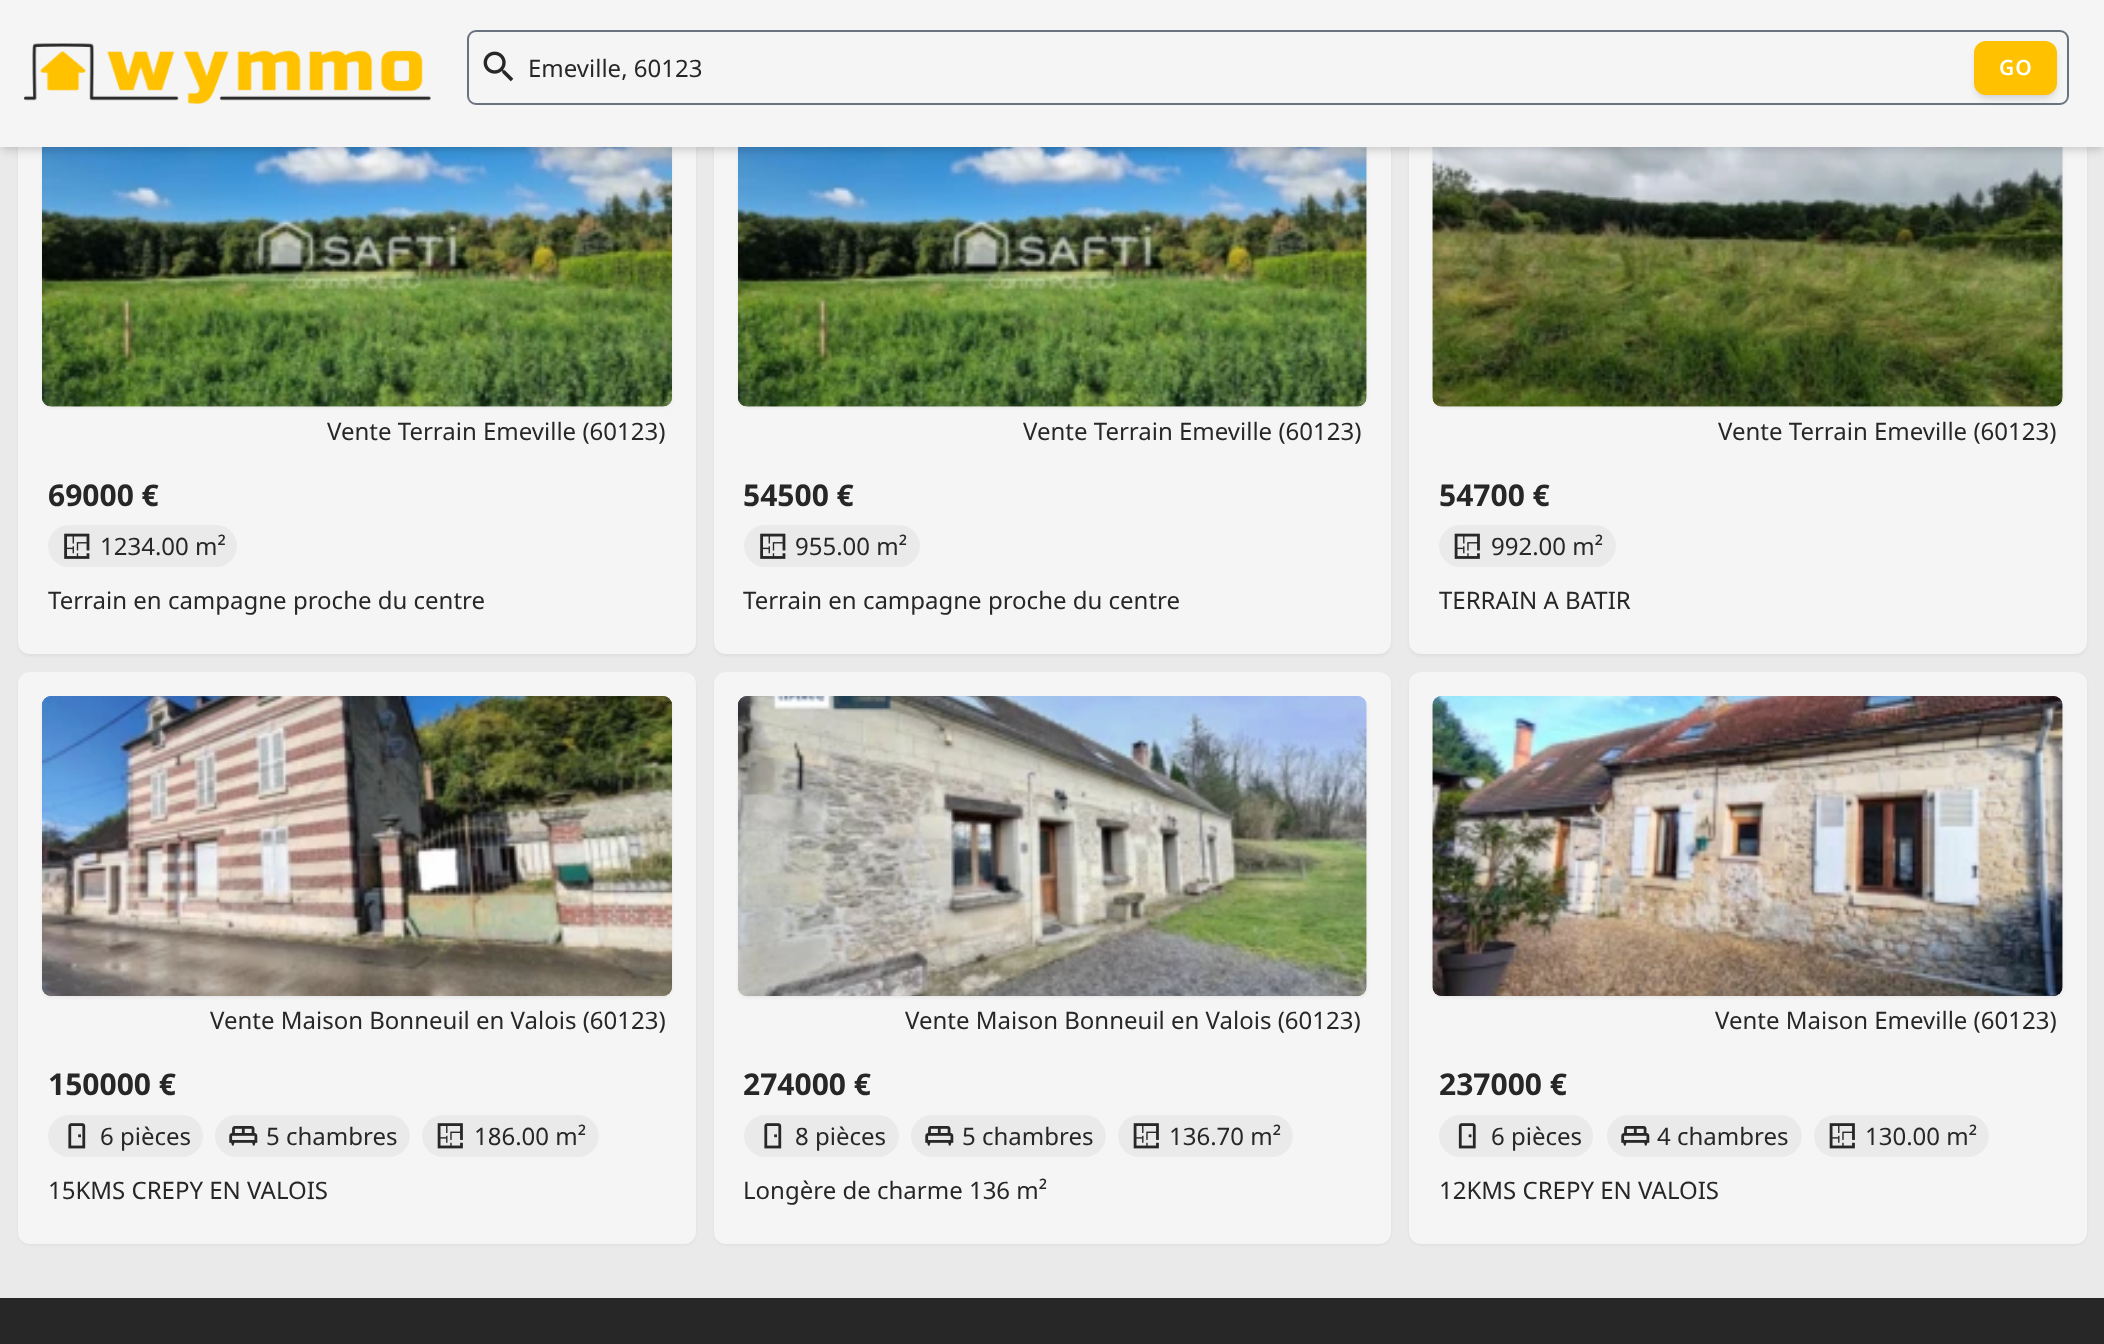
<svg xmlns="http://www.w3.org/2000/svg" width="2104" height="1344">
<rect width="100%" height="100%" fill="#eaeaea"/>
<rect x="18" y="84" width="678" height="572" rx="12" fill="#0000000d" filter="blur(1.5px)"/>
<rect x="18" y="83" width="678" height="571" rx="12" fill="#f5f5f5"/>
<rect x="42" y="108" width="630" height="300" rx="9" fill="#0000000d" filter="blur(1.5px)"/>
<image x="42" y="398" width="630" height="9" href="media/3.png"/>
<image x="42" y="147" width="630" height="260" href="media/4.png"/>
<rect x="714" y="84" width="677" height="572" rx="12" fill="#0000000d" filter="blur(1.5px)"/>
<rect x="714" y="83" width="677" height="571" rx="12" fill="#f5f5f5"/>
<rect x="738" y="108" width="629" height="300" rx="9" fill="#0000000d" filter="blur(1.5px)"/>
<image x="738" y="147" width="629" height="260" href="media/6.png"/>
<image x="738" y="147" width="629" height="260" href="media/7.png"/>
<rect x="1409" y="84" width="678" height="572" rx="12" fill="#0000000d" filter="blur(1.5px)"/>
<rect x="1409" y="83" width="678" height="571" rx="12" fill="#f5f5f5"/>
<rect x="1433" y="108" width="630" height="300" rx="9" fill="#0000000d" filter="blur(1.5px)"/>
<image x="1432" y="147" width="631" height="260" href="media/8.png"/>
<image x="1432" y="147" width="631" height="260" href="media/9.png"/>
<rect x="3" y="6" width="2099" height="141" fill="#0000001a" filter="blur(3px)"/>
<rect x="2" y="8" width="2101" height="144" fill="#0000001a" filter="blur(4.5px)"/>
<rect width="2104" height="147" fill="#f5f5f5"/>
<image x="24" y="43" width="407" height="61" href="media/1.png"/>
<rect x="468" y="31" width="1600" height="73" rx="8" fill="none" stroke="#6b7280" stroke-width="2"/>
<image x="483" y="51" width="31" height="31" href="media/2.png"/>
<text x="528" y="77" style="font-family:Noto Sans;font-size:24px;fill:#272727">Emeville, 60123</text>
<rect x="1977" y="47" width="77" height="48" rx="9" fill="#0000001a" filter="blur(3px)"/>
<rect x="1976" y="48" width="79" height="51" rx="11" fill="#0000001a" filter="blur(4.5px)"/>
<rect x="1974" y="41" width="83" height="54" rx="12" fill="#ffc100"/>
<text x="1999" y="75" style="font-family:Noto Sans;font-size:21px;font-weight:600;letter-spacing:1px;fill:#fff">GO</text>
<text x="327" y="440" style="font-family:Noto Sans;font-size:24px;fill:#272727">Vente Terrain Emeville (60123)</text>
<text x="48" y="506" style="font-family:Noto Sans;font-size:30px;font-weight:bold;fill:#272727">69000 €</text>
<rect x="48" y="525" width="189" height="42" rx="21" fill="#eaeaea"/>
<image x="64" y="533" width="26" height="26" href="media/5.png"/>
<text x="100" y="555" style="font-family:Noto Sans;font-size:24px;fill:#272727">1234.00 m²</text>
<text x="48" y="609" style="font-family:Noto Sans;font-size:24px;fill:#272727">Terrain en campagne proche du centre</text>
<text x="1023" y="440" style="font-family:Noto Sans;font-size:24px;fill:#272727">Vente Terrain Emeville (60123)</text>
<text x="743" y="506" style="font-family:Noto Sans;font-size:30px;font-weight:bold;fill:#272727">54500 €</text>
<rect x="744" y="525" width="176" height="42" rx="21" fill="#eaeaea"/>
<image x="760" y="533" width="26" height="26" href="media/5.png"/>
<text x="795" y="555" style="font-family:Noto Sans;font-size:24px;fill:#272727">955.00 m²</text>
<text x="743" y="609" style="font-family:Noto Sans;font-size:24px;fill:#272727">Terrain en campagne proche du centre</text>
<text x="1718" y="440" style="font-family:Noto Sans;font-size:24px;fill:#272727">Vente Terrain Emeville (60123)</text>
<text x="1439" y="506" style="font-family:Noto Sans;font-size:30px;font-weight:bold;fill:#272727">54700 €</text>
<rect x="1439" y="525" width="177" height="42" rx="21" fill="#eaeaea"/>
<image x="1454" y="533" width="26" height="26" href="media/10.png"/>
<text x="1491" y="555" style="font-family:Noto Sans;font-size:24px;fill:#272727">992.00 m²</text>
<text x="1439" y="609" style="font-family:Noto Sans;font-size:24px;fill:#272727">TERRAIN A BATIR</text>
<rect x="18" y="674" width="678" height="571" rx="12" fill="#0000000d" filter="blur(1.5px)"/>
<rect x="18" y="672" width="678" height="572" rx="12" fill="#f5f5f5"/>
<rect x="42" y="698" width="630" height="300" rx="9" fill="#0000000d" filter="blur(1.5px)"/>
<image x="42" y="696" width="630" height="300" href="media/11.png"/>
<image x="42" y="696" width="630" height="300" href="media/12.png"/>
<text x="210" y="1029" style="font-family:Noto Sans;font-size:24px;fill:#272727">Vente Maison Bonneuil en Valois (60123)</text>
<text x="48" y="1095" style="font-family:Noto Sans;font-size:30px;font-weight:bold;fill:#272727">150000 €</text>
<rect x="48" y="1115" width="155" height="42" rx="21" fill="#eaeaea"/>
<image x="68" y="1123" width="18" height="26" href="media/13.png"/>
<text x="100" y="1145" style="font-family:Noto Sans;font-size:24px;fill:#272727">6 pièces</text>
<rect x="215" y="1115" width="195" height="42" rx="21" fill="#eaeaea"/>
<image x="229" y="1126" width="29" height="20" href="media/14.png"/>
<text x="266" y="1145" style="font-family:Noto Sans;font-size:24px;fill:#272727">5 chambres</text>
<rect x="422" y="1115" width="177" height="42" rx="21" fill="#eaeaea"/>
<image x="437" y="1123" width="26" height="26" href="media/15.png"/>
<text x="474" y="1145" style="font-family:Noto Sans;font-size:24px;fill:#272727">186.00 m²</text>
<text x="48" y="1199" style="font-family:Noto Sans;font-size:24px;fill:#272727">15KMS CREPY EN VALOIS</text>
<rect x="714" y="674" width="677" height="571" rx="12" fill="#0000000d" filter="blur(1.5px)"/>
<rect x="714" y="672" width="677" height="572" rx="12" fill="#f5f5f5"/>
<rect x="738" y="698" width="629" height="300" rx="9" fill="#0000000d" filter="blur(1.5px)"/>
<image x="738" y="696" width="629" height="300" href="media/16.png"/>
<image x="738" y="696" width="629" height="300" href="media/17.png"/>
<text x="905" y="1029" style="font-family:Noto Sans;font-size:24px;fill:#272727">Vente Maison Bonneuil en Valois (60123)</text>
<text x="743" y="1095" style="font-family:Noto Sans;font-size:30px;font-weight:bold;fill:#272727">274000 €</text>
<rect x="744" y="1115" width="155" height="42" rx="21" fill="#eaeaea"/>
<image x="764" y="1123" width="18" height="26" href="media/13.png"/>
<text x="795" y="1145" style="font-family:Noto Sans;font-size:24px;fill:#272727">8 pièces</text>
<rect x="911" y="1115" width="195" height="42" rx="21" fill="#eaeaea"/>
<image x="925" y="1126" width="29" height="20" href="media/14.png"/>
<text x="962" y="1145" style="font-family:Noto Sans;font-size:24px;fill:#272727">5 chambres</text>
<rect x="1118" y="1115" width="175" height="42" rx="21" fill="#eaeaea"/>
<image x="1133" y="1123" width="26" height="26" href="media/15.png"/>
<text x="1169" y="1145" style="font-family:Noto Sans;font-size:24px;fill:#272727">136.70 m²</text>
<text x="743" y="1199" style="font-family:Noto Sans;font-size:24px;fill:#272727">Longère de charme 136 m²</text>
<rect x="1409" y="674" width="678" height="571" rx="12" fill="#0000000d" filter="blur(1.5px)"/>
<rect x="1409" y="672" width="678" height="572" rx="12" fill="#f5f5f5"/>
<rect x="1433" y="698" width="630" height="300" rx="9" fill="#0000000d" filter="blur(1.5px)"/>
<image x="1432" y="696" width="631" height="300" href="media/18.png"/>
<image x="1432" y="696" width="631" height="300" href="media/19.png"/>
<text x="1715" y="1029" style="font-family:Noto Sans;font-size:24px;fill:#272727">Vente Maison Emeville (60123)</text>
<text x="1439" y="1095" style="font-family:Noto Sans;font-size:30px;font-weight:bold;fill:#272727">237000 €</text>
<rect x="1439" y="1115" width="154" height="42" rx="21" fill="#eaeaea"/>
<image x="1458" y="1123" width="18" height="26" href="media/20.png"/>
<text x="1491" y="1145" style="font-family:Noto Sans;font-size:24px;fill:#272727">6 pièces</text>
<rect x="1607" y="1115" width="195" height="42" rx="21" fill="#eaeaea"/>
<image x="1621" y="1126" width="29" height="20" href="media/14.png"/>
<text x="1657" y="1145" style="font-family:Noto Sans;font-size:24px;fill:#272727">4 chambres</text>
<rect x="1814" y="1115" width="175" height="42" rx="21" fill="#eaeaea"/>
<image x="1829" y="1123" width="26" height="26" href="media/15.png"/>
<text x="1865" y="1145" style="font-family:Noto Sans;font-size:24px;fill:#272727">130.00 m²</text>
<text x="1439" y="1199" style="font-family:Noto Sans;font-size:24px;fill:#272727">12KMS CREPY EN VALOIS</text>
<rect y="1298" width="2104" height="46" fill="#272727"/>
</svg>
